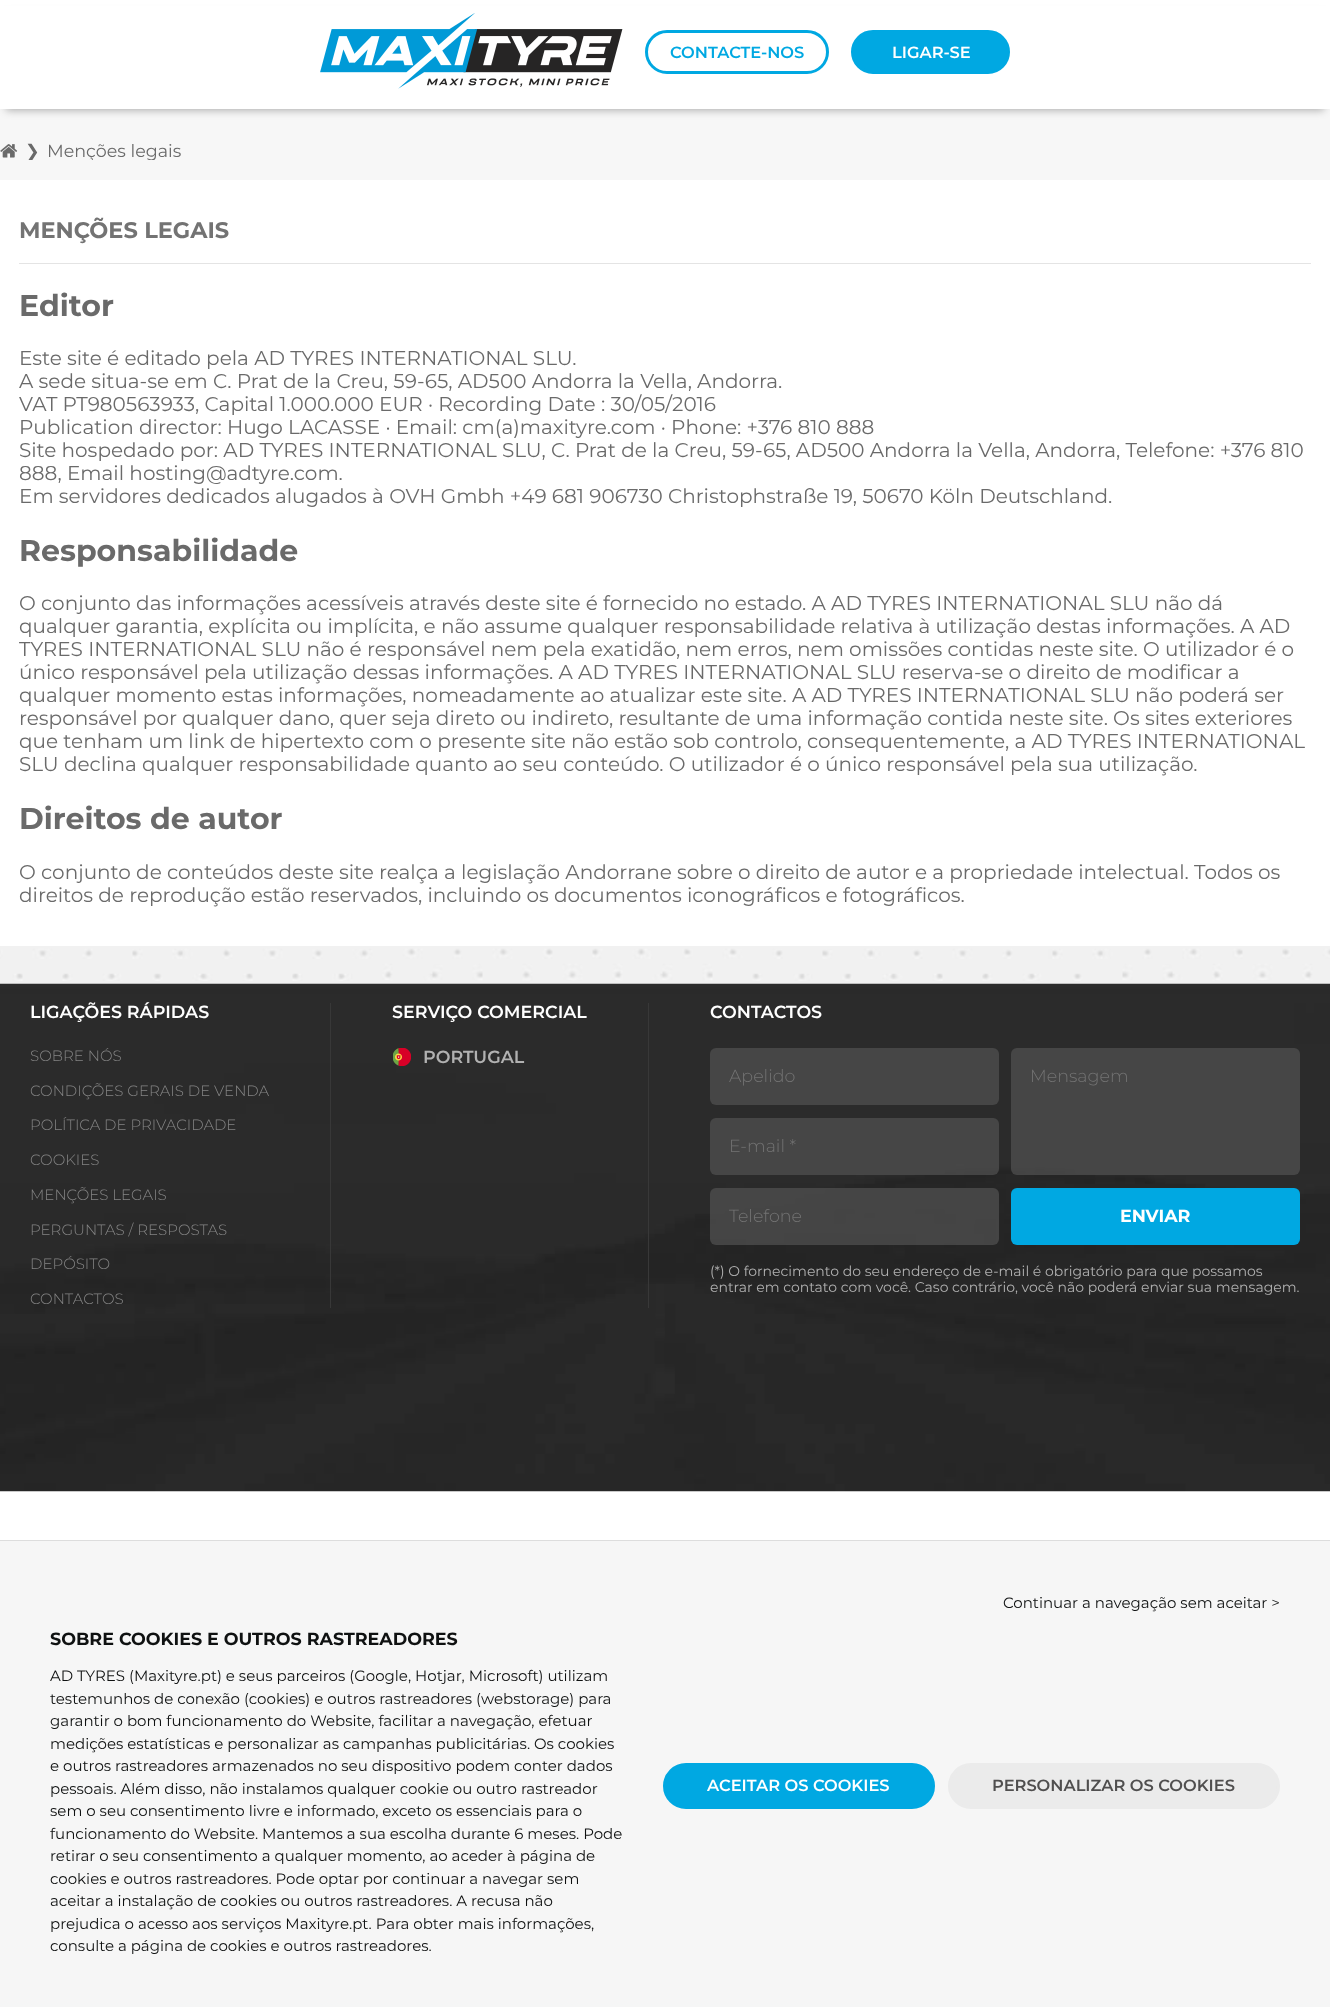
<svg xmlns="http://www.w3.org/2000/svg" width="1330" height="2007">
<defs>
<clipPath id="clip1"><rect x="25" y="140" width="156" height="20"/></clipPath>
</defs>
<rect width="100%" height="100%" fill="#fff"/>
<image x="0" y="109" width="1330" height="872" href="media/2.png"/>
<rect x="6" y="14" width="1318" height="96" fill="#00000052" filter="blur(4.5px)"/>
<rect y="6" width="1330" height="103" fill="#fff"/>
<image x="320" y="13" width="303" height="76" href="media/1.png"/>
<rect x="646.5" y="31.5" width="181" height="41" rx="20.5" fill="none" stroke="#00a8e2" stroke-width="3"/>
<text x="670" y="58" style="font-family:Montserrat;font-size:16.25px;font-weight:600;fill:#00a8e2">CONTACTE-NOS</text>
<rect x="852.5" y="31.5" width="156" height="41" rx="20.5" fill="#00a8e2" stroke="#00a8e2" stroke-width="3"/>
<text x="892" y="58" style="font-family:Montserrat;font-size:16.25px;font-weight:600;fill:#fff">LIGAR-SE</text>
<rect y="981" width="1330" height="3" fill="#f1f1f1"/>
<image x="0" y="144" width="18" height="14" href="media/3.png"/>
<g clip-path="url(#clip1)">
<text x="25" y="157" style="font-family:DejaVu Sans;font-size:17.5px;fill:#6a6a6a">❯</text>
<text x="47" y="157" style="font-family:Montserrat;font-size:17.5px;fill:#6a6a6a">Menções legais</text>
</g>
<rect y="180" width="1330" height="766" fill="#fff"/>
<rect x="19" y="263" width="1292" height="1" fill="#e4e4e4"/>
<text x="19" y="238" style="font-family:Montserrat;font-size:22.5px;font-weight:bold;fill:#737373">MENÇÕES LEGAIS</text>
<text x="19" y="316" style="font-family:Montserrat;font-size:30px;font-weight:bold;fill:#6a6a6a">Editor</text>
<text x="19" y="365" style="font-family:Montserrat;font-size:20px;fill:#6a6a6a">Este site é editado pela AD TYRES INTERNATIONAL SLU.</text>
<text x="19" y="388" style="font-family:Montserrat;font-size:20px;fill:#6a6a6a">A sede situa-se em C. Prat de la Creu, 59-65, AD500 Andorra la Vella, Andorra.</text>
<text x="19" y="411" style="font-family:Montserrat;font-size:20px;fill:#6a6a6a">VAT PT980563933, Capital 1.000.000 EUR · Recording Date : 30/05/2016</text>
<text x="19" y="434" style="font-family:Montserrat;font-size:20px;fill:#6a6a6a">Publication director: Hugo LACASSE · Email: cm(a)maxityre.com · Phone: +376 810 888</text>
<text x="19" y="457" style="font-family:Montserrat;font-size:20px;fill:#6a6a6a">Site hospedado por: AD TYRES INTERNATIONAL SLU, C. Prat de la Creu, 59-65, AD500 Andorra la Vella, Andorra, Telefone: +376 810</text>
<text x="19" y="480" style="font-family:Montserrat;font-size:20px;fill:#6a6a6a">888, Email hosting@adtyre.com.</text>
<text x="19" y="503" style="font-family:Montserrat;font-size:20px;fill:#6a6a6a">Em servidores dedicados alugados à OVH Gmbh +49 681 906730 Christophstraße 19, 50670 Köln Deutschland.</text>
<text x="19" y="561" style="font-family:Montserrat;font-size:30px;font-weight:bold;fill:#6a6a6a">Responsabilidade</text>
<text x="19" y="610" style="font-family:Montserrat;font-size:20px;fill:#6a6a6a">O conjunto das informações acessíveis através deste site é fornecido no estado. A AD TYRES INTERNATIONAL SLU não dá</text>
<text x="19" y="633" style="font-family:Montserrat;font-size:20px;fill:#6a6a6a">qualquer garantia, explícita ou implícita, e não assume qualquer responsabilidade relativa à utilização destas informações. A AD</text>
<text x="19" y="656" style="font-family:Montserrat;font-size:20px;fill:#6a6a6a">TYRES INTERNATIONAL SLU não é responsável nem pela exatidão, nem erros, nem omissões contidas neste site. O utilizador é o</text>
<text x="19" y="679" style="font-family:Montserrat;font-size:20px;fill:#6a6a6a">único responsável pela utilização dessas informações. A AD TYRES INTERNATIONAL SLU reserva-se o direito de modificar a</text>
<text x="19" y="702" style="font-family:Montserrat;font-size:20px;fill:#6a6a6a">qualquer momento estas informações, nomeadamente ao atualizar este site. A AD TYRES INTERNATIONAL SLU não poderá ser</text>
<text x="19" y="725" style="font-family:Montserrat;font-size:20px;fill:#6a6a6a">responsável por qualquer dano, quer seja direto ou indireto, resultante de uma informação contida neste site. Os sites exteriores</text>
<text x="19" y="748" style="font-family:Montserrat;font-size:20px;fill:#6a6a6a">que tenham um link de hipertexto com o presente site não estão sob controlo, consequentemente, a AD TYRES INTERNATIONAL</text>
<text x="19" y="771" style="font-family:Montserrat;font-size:20px;fill:#6a6a6a">SLU declina qualquer responsabilidade quanto ao seu conteúdo. O utilizador é o único responsável pela sua utilização.</text>
<text x="19" y="829" style="font-family:Montserrat;font-size:30px;font-weight:bold;fill:#6a6a6a">Direitos de autor</text>
<text x="19" y="879" style="font-family:Montserrat;font-size:20px;fill:#6a6a6a">O conjunto de conteúdos deste site realça a legislação Andorrane sobre o direito de autor e a propriedade intelectual. Todos os</text>
<text x="19" y="902" style="font-family:Montserrat;font-size:20px;fill:#6a6a6a">direitos de reprodução estão reservados, incluindo os documentos iconográficos e fotográficos.</text>
<image x="0" y="983" width="1330" height="509" href="media/4.png"/>
<text x="30" y="1018" style="font-family:Montserrat;font-size:17.5px;font-weight:600;fill:#fff">LIGAÇÕES RÁPIDAS</text>
<text x="30" y="1061" style="font-family:Montserrat;font-size:15px;font-weight:300;fill:#858585">SOBRE NÓS</text>
<text x="30" y="1096" style="font-family:Montserrat;font-size:15px;font-weight:300;fill:#858585">CONDIÇÕES GERAIS DE VENDA</text>
<text x="30" y="1130" style="font-family:Montserrat;font-size:15px;font-weight:300;fill:#858585">POLÍTICA DE PRIVACIDADE</text>
<text x="30" y="1165" style="font-family:Montserrat;font-size:15px;font-weight:300;fill:#858585">COOKIES</text>
<text x="30" y="1200" style="font-family:Montserrat;font-size:15px;font-weight:300;fill:#858585">MENÇÕES LEGAIS</text>
<text x="30" y="1235" style="font-family:Montserrat;font-size:15px;font-weight:300;fill:#858585">PERGUNTAS / RESPOSTAS</text>
<text x="30" y="1269" style="font-family:Montserrat;font-size:15px;font-weight:300;fill:#858585">DEPÓSITO</text>
<text x="30" y="1304" style="font-family:Montserrat;font-size:15px;font-weight:300;fill:#858585">CONTACTOS</text>
<rect x="330" y="1003" width="1" height="305" fill="#383838"/>
<text x="392" y="1018" style="font-family:Montserrat;font-size:17.5px;font-weight:600;fill:#fff">SERVIÇO COMERCIAL</text>
<image x="393" y="1048" width="18" height="18" href="media/5.png"/>
<text x="423" y="1063" style="font-family:Montserrat;font-size:17.5px;font-weight:600;fill:#b1b1b1">PORTUGAL</text>
<rect x="648" y="1003" width="1" height="305" fill="#383838"/>
<text x="710" y="1018" style="font-family:Montserrat;font-size:17.5px;font-weight:600;fill:#fff">CONTACTOS</text>
<rect x="710" y="1048" width="289" height="57" rx="6" fill="#464646"/>
<text x="729" y="1082" style="font-family:Montserrat;font-size:17.5px;font-weight:300;fill:#737373">Apelido</text>
<rect x="710" y="1118" width="289" height="57" rx="6" fill="#525252b3"/>
<text x="729" y="1152" style="font-family:Montserrat;font-size:17.5px;font-weight:300;fill:#737373">E-mail *</text>
<rect x="710" y="1188" width="289" height="57" rx="6" fill="#525252b3"/>
<text x="729" y="1222" style="font-family:Montserrat;font-size:17.5px;font-weight:300;fill:#737373">Telefone</text>
<rect x="1011" y="1048" width="289" height="127" rx="6" fill="#525252b3"/>
<text x="1030" y="1082" style="font-family:Montserrat;font-size:17.5px;font-weight:300;fill:#737373">Mensagem</text>
<rect x="1011" y="1188" width="289" height="57" rx="6" fill="#00a8e2"/>
<text x="1120" y="1222" style="font-family:Montserrat;font-size:17.5px;font-weight:bold;fill:#fff">ENVIAR</text>
<text x="710" y="1276" style="font-family:Montserrat;font-size:14px;fill:#b1b1b1">(*) O fornecimento do seu endereço de e-mail é obrigatório para que possamos</text>
<text x="710" y="1292" style="font-family:Montserrat;font-size:14px;fill:#b1b1b1">entrar em contato com você. Caso contrário, você não poderá enviar sua mensagem.</text>
<rect y="1541" width="1330" height="466" fill="#f6f6f6"/>
<rect y="1540" width="1330" height="1" fill="#ddd"/>
<text x="1003" y="1608" style="font-family:Montserrat;font-size:15px;fill:#0f1111">Continuar a navegação sem aceitar &gt;</text>
<text x="50" y="1645" style="font-family:Montserrat;font-size:17.5px;font-weight:bold;fill:#0f1111">SOBRE COOKIES E OUTROS RASTREADORES</text>
<text x="50" y="1681" style="font-family:Montserrat;font-size:15px;fill:#0f1111">AD TYRES (Maxityre.pt) e seus parceiros (Google, Hotjar, Microsoft) utilizam</text>
<text x="50" y="1704" style="font-family:Montserrat;font-size:15px;fill:#0f1111">testemunhos de conexão (cookies) e outros rastreadores (webstorage) para</text>
<text x="50" y="1726" style="font-family:Montserrat;font-size:15px;fill:#0f1111">garantir o bom funcionamento do Website, facilitar a navegação, efetuar</text>
<text x="50" y="1749" style="font-family:Montserrat;font-size:15px;fill:#0f1111">medições estatísticas e personalizar as campanhas publicitárias. Os cookies</text>
<text x="50" y="1771" style="font-family:Montserrat;font-size:15px;fill:#0f1111">e outros rastreadores armazenados no seu dispositivo podem conter dados</text>
<text x="50" y="1794" style="font-family:Montserrat;font-size:15px;fill:#0f1111">pessoais. Além disso, não instalamos qualquer cookie ou outro rastreador</text>
<text x="50" y="1816" style="font-family:Montserrat;font-size:15px;fill:#0f1111">sem o seu consentimento livre e informado, exceto os essenciais para o</text>
<text x="50" y="1839" style="font-family:Montserrat;font-size:15px;fill:#0f1111">funcionamento do Website. Mantemos a sua escolha durante 6 meses. Pode</text>
<text x="50" y="1861" style="font-family:Montserrat;font-size:15px;fill:#0f1111">retirar o seu consentimento a qualquer momento, ao aceder à página de</text>
<text x="50" y="1884" style="font-family:Montserrat;font-size:15px;fill:#0f1111">cookies e outros rastreadores. Pode optar por continuar a navegar sem</text>
<text x="50" y="1906" style="font-family:Montserrat;font-size:15px;fill:#0f1111">aceitar a instalação de cookies ou outros rastreadores. A recusa não</text>
<text x="50" y="1929" style="font-family:Montserrat;font-size:15px;fill:#0f1111">prejudica o acesso aos serviços Maxityre.pt. Para obter mais informações,</text>
<text x="50" y="1951" style="font-family:Montserrat;font-size:15px;fill:#0f1111">consulte a página de cookies e outros rastreadores.</text>
<rect x="664.5" y="1764.5" width="269" height="43" rx="21.5" fill="#00a8e2" stroke="#00a8e2" stroke-width="3"/>
<text x="707" y="1791" style="font-family:Montserrat;font-size:16.25px;font-weight:600;fill:#fff">ACEITAR OS COOKIES</text>
<rect x="949.5" y="1764.5" width="329" height="43" rx="21.5" fill="#ebebeb" stroke="#ebebeb" stroke-width="3"/>
<text x="992" y="1791" style="font-family:Montserrat;font-size:16.25px;font-weight:600;fill:#504f4f">PERSONALIZAR OS COOKIES</text>
</svg>
